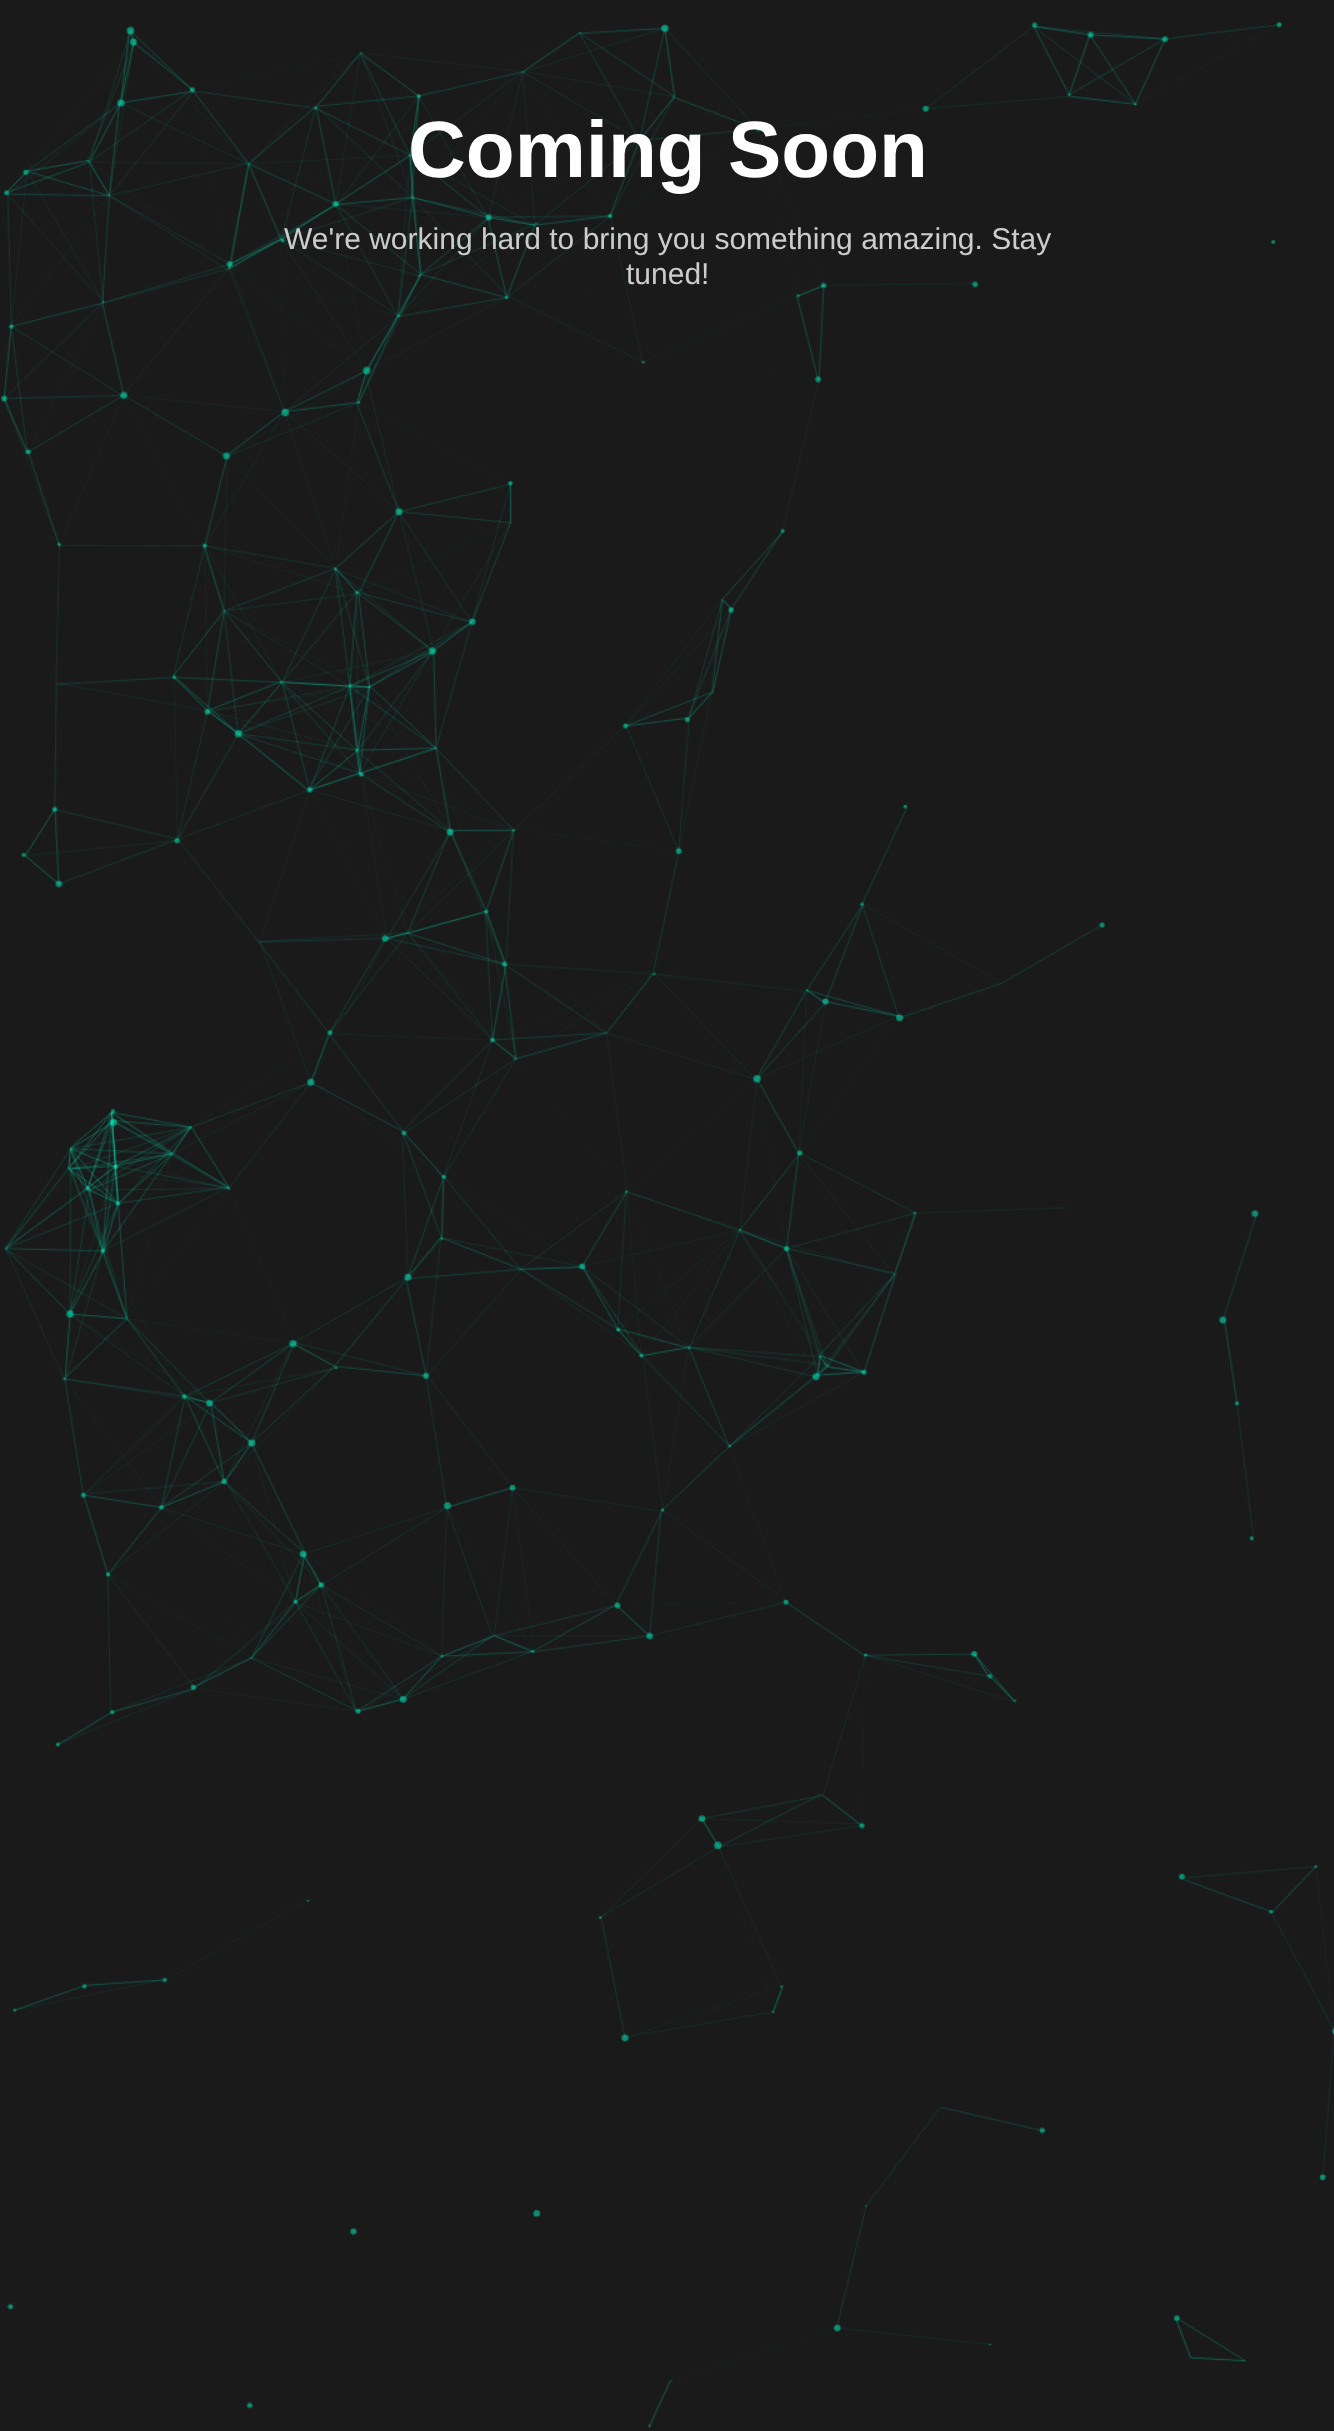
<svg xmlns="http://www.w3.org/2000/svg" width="1334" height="2431">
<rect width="100%" height="100%" fill="#1a1a1a"/>
<image x="1" y="21" width="1333" height="2407" href="media/1.png"/>
<text x="408" y="177" style="font-family:Liberation Sans;font-size:80px;font-weight:bold;fill:#fff">Coming Soon</text>
<text x="284" y="249" style="font-family:Liberation Sans;font-size:30px;fill:#ccc">We're working hard to bring you something amazing. Stay</text>
<text x="626" y="284" style="font-family:Liberation Sans;font-size:30px;fill:#ccc">tuned!</text>
</svg>
